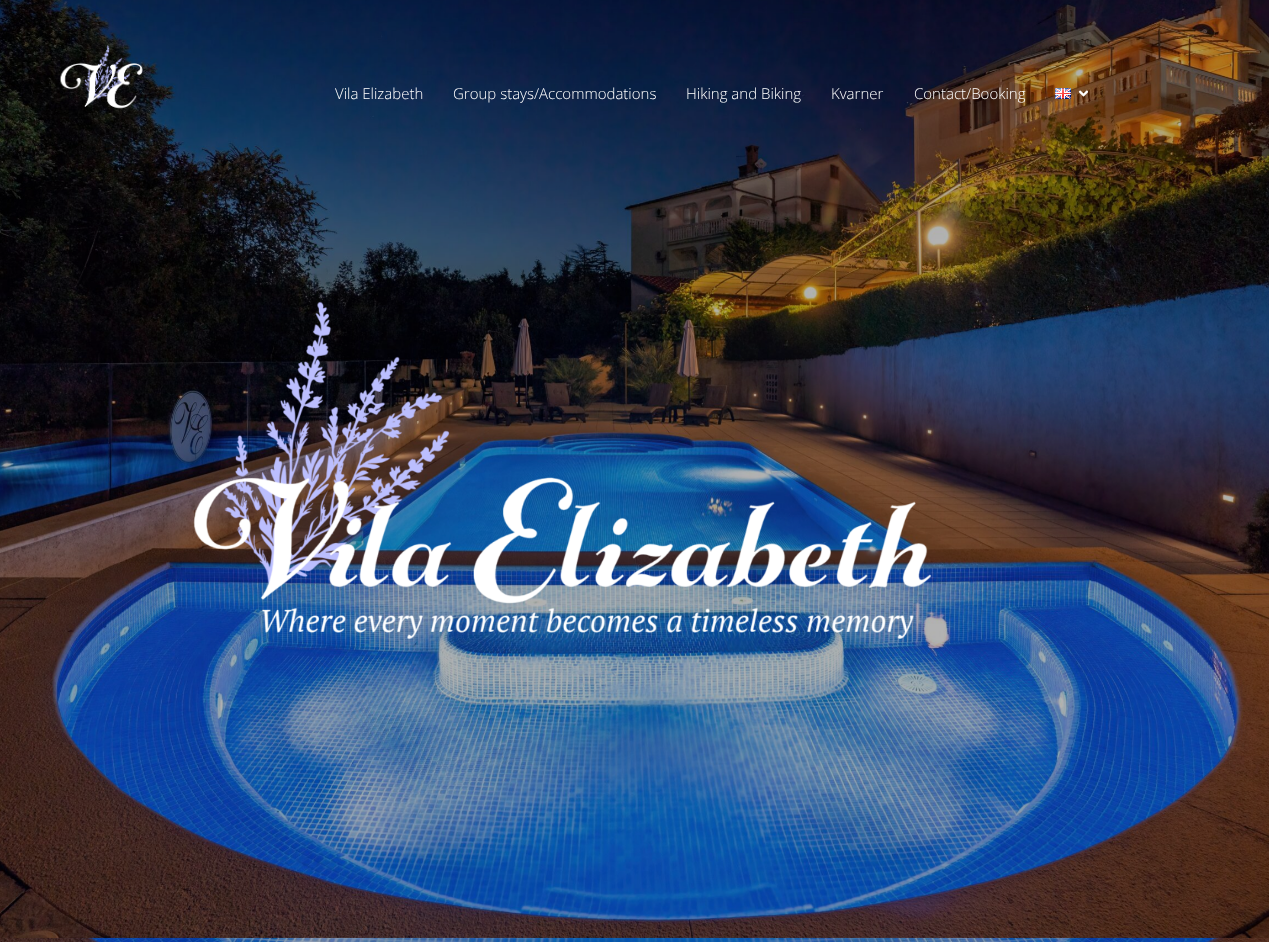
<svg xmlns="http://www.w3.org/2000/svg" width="1269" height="942">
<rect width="100%" height="100%" fill="#fff"/>
<image x="0" y="937" width="1269" height="5" href="media/1.png"/>
<image x="0" y="0" width="1269" height="938" href="media/2.png"/>
<image x="193" y="301" width="739" height="338" href="media/3.png"/>
<image x="59" y="45" width="84" height="64" href="media/4.png"/>
<text x="335" y="99" style="font-family:Open Sans;font-size:15px;font-weight:300;fill:#fff">Vila Elizabeth</text>
<text x="453" y="99" style="font-family:Open Sans;font-size:15px;font-weight:300;fill:#fff">Group stays/Accommodations</text>
<text x="686" y="99" style="font-family:Open Sans;font-size:15px;font-weight:300;fill:#fff">Hiking and Biking</text>
<text x="831" y="99" style="font-family:Open Sans;font-size:15px;font-weight:300;fill:#fff">Kvarner</text>
<text x="914" y="99" style="font-family:Open Sans;font-size:15px;font-weight:300;fill:#fff">Contact/Booking</text>
<image x="1055" y="88" width="16" height="11" href="media/5.png"/>
<image x="1078" y="90" width="11" height="7" href="media/6.png"/>
</svg>
